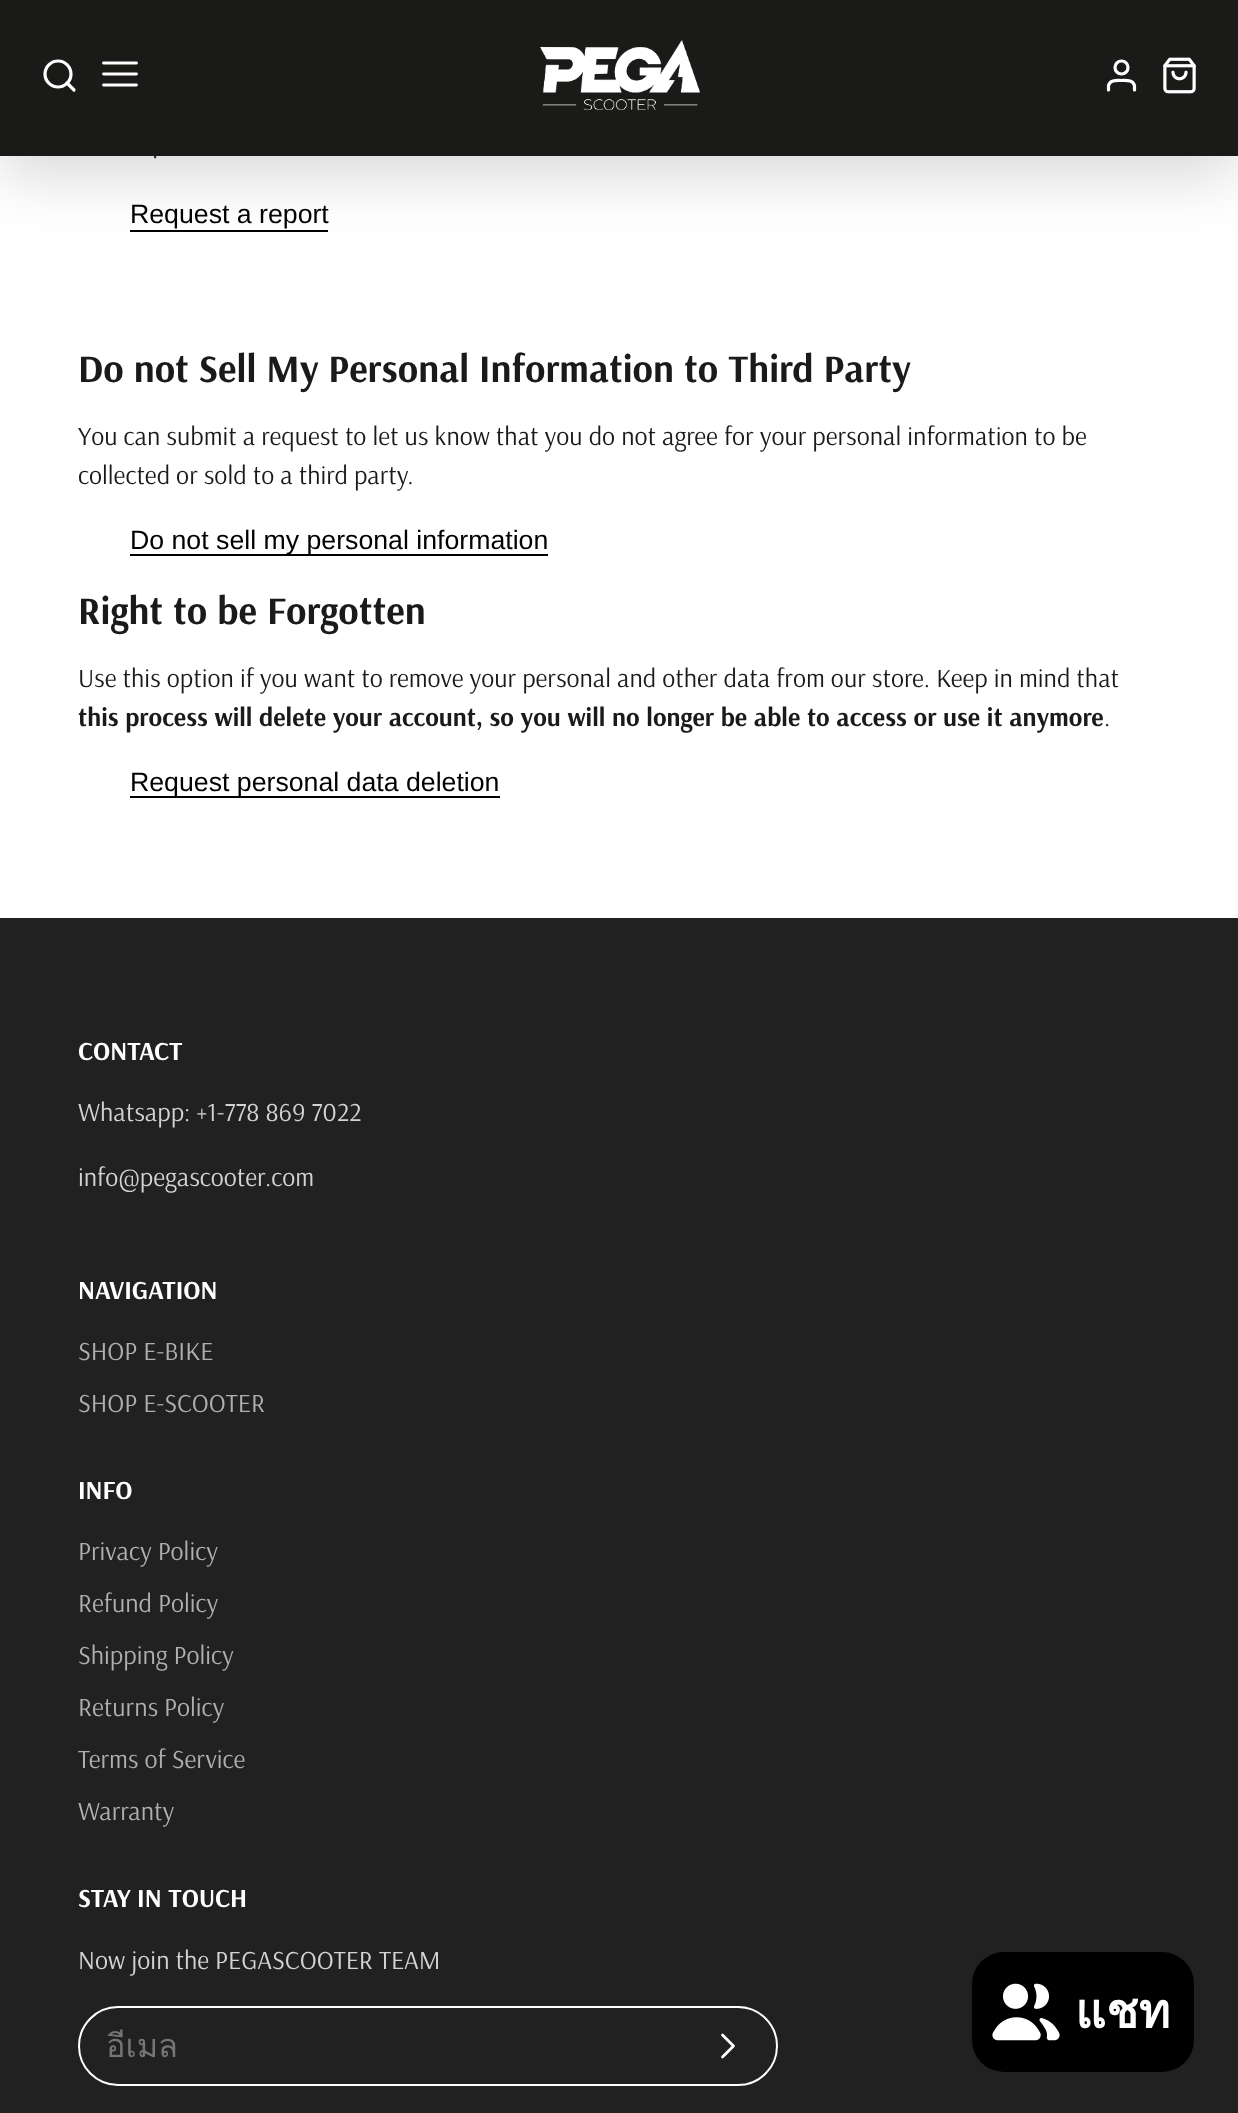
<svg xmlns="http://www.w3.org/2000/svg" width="1238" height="2113">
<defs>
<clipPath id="clip1"><rect x="106" y="2020" width="548" height="52"/></clipPath>
</defs>
<rect width="100%" height="100%" fill="#fff"/>
<rect x="130" y="230" width="198" height="2" fill="#000"/>
<rect y="20" width="1238" height="156" fill="#00000026" filter="blur(30px)"/>
<rect width="1238" height="156" fill="#1a1b18"/>
<circle cx="58" cy="74" r="13" fill="none" stroke="#fff" stroke-width="3.2"/>
<path d="M74 90l-7-7" fill="none" stroke="#fff" stroke-width="3.2" stroke-linecap="round" stroke-linejoin="round"/>
<path d="M103.5 74h33m-33-11h33m-33 22h33" fill="none" stroke="#fff" stroke-width="2.8" stroke-linecap="round" stroke-linejoin="round"/>
<image x="540" y="40" width="160" height="70" href="media/1.png"/>
<circle cx="1121.5" cy="67.5" r="6.5" fill="none" stroke="#fff" stroke-width="3.2"/>
<path d="M1134.5 90v-4.5c-1.5-6-8.5-5-13-5c-4.5 0-11.5-1-13 5v4.5" fill="none" stroke="#fff" stroke-width="3.2" stroke-linecap="round" stroke-linejoin="round"/>
<image x="1163" y="57" width="33" height="37" href="media/2.png"/>
<text x="152" y="158" style="font-family:Arsenal;font-size:26px;fill:#1a1b18">.</text>
<text x="130" y="223" style="font-family:Liberation Sans;font-size:26.7px;fill:#000">Request a report</text>
<text x="78" y="382" style="font-family:Arsenal;font-size:39px;font-weight:bold;fill:#1a1b18">Do not Sell My Personal Information to Third Party</text>
<text x="78" y="445" style="font-family:Arsenal;font-size:26px;fill:#1a1b18">You can submit a request to let us know that you do not agree for your personal information to be</text>
<text x="78" y="484" style="font-family:Arsenal;font-size:26px;fill:#1a1b18">collected or sold to a third party.</text>
<rect x="130" y="554" width="418" height="2" fill="#000"/>
<text x="130" y="549" style="font-family:Liberation Sans;font-size:26.7px;fill:#000">Do not sell my personal information</text>
<text x="78" y="624" style="font-family:Arsenal;font-size:39px;font-weight:bold;fill:#1a1b18">Right to be Forgotten</text>
<text x="78" y="687" style="font-family:Arsenal;font-size:26px;fill:#1a1b18">Use this option if you want to remove your personal and other data from our store. Keep in mind that</text>
<text x="78" y="726" style="font-family:Arsenal;font-size:26px;font-weight:bold;fill:#1a1b18">this process will delete your account, so you will no longer be able to access or use it anymore</text>
<text x="1104" y="726" style="font-family:Arsenal;font-size:26px;fill:#1a1b18">.</text>
<rect x="130" y="796" width="370" height="2" fill="#000"/>
<text x="130" y="791" style="font-family:Liberation Sans;font-size:26.7px;fill:#000">Request personal data deletion</text>
<rect y="918" width="1238" height="1195" fill="#212121"/>
<text x="78" y="1060" style="font-family:Arsenal;font-size:26px;font-weight:bold;fill:#fff">CONTACT</text>
<text x="78" y="1121" style="font-family:Arsenal;font-size:26px;fill:#d3d3d3">Whatsapp: +1-778 869 7022</text>
<text x="78" y="1186" style="font-family:Arsenal;font-size:26px;fill:#d3d3d3">info@pegascooter.com</text>
<text x="78" y="1299" style="font-family:Arsenal;font-size:26px;font-weight:bold;fill:#fff">NAVIGATION</text>
<text x="78" y="1360" style="font-family:Arsenal;font-size:26px;fill:#afafaf">SHOP E-BIKE</text>
<text x="78" y="1412" style="font-family:Arsenal;font-size:26px;fill:#afafaf">SHOP E-SCOOTER</text>
<text x="78" y="1499" style="font-family:Arsenal;font-size:26px;font-weight:bold;fill:#fff">INFO</text>
<text x="78" y="1560" style="font-family:Arsenal;font-size:26px;fill:#afafaf">Privacy Policy</text>
<text x="78" y="1612" style="font-family:Arsenal;font-size:26px;fill:#afafaf">Refund Policy</text>
<text x="78" y="1664" style="font-family:Arsenal;font-size:26px;fill:#afafaf">Shipping Policy</text>
<text x="78" y="1716" style="font-family:Arsenal;font-size:26px;fill:#afafaf">Returns Policy</text>
<text x="78" y="1768" style="font-family:Arsenal;font-size:26px;fill:#afafaf">Terms of Service</text>
<text x="78" y="1820" style="font-family:Arsenal;font-size:26px;fill:#afafaf">Warranty</text>
<text x="78" y="1907" style="font-family:Arsenal;font-size:26px;font-weight:bold;fill:#fff">STAY IN TOUCH</text>
<text x="78" y="1969" style="font-family:Arsenal;font-size:26px;fill:#d3d3d3">Now join the PEGASCOOTER TEAM</text>
<rect x="79" y="2007" width="698" height="78" rx="39" fill="none" stroke="#fff" stroke-width="2"/>
<g clip-path="url(#clip1)">
<text x="106" y="2057" style="font-family:Loma;font-size:32.5px;fill:#757575">อีเมล</text>
</g>
<path d="M722.5 2057l11-11l-11-11" fill="none" stroke="#fff" stroke-width="2.8" stroke-linecap="round" stroke-linejoin="round"/>
<rect x="972" y="1952" width="222" height="120" rx="32" fill="#000"/>
<image x="992" y="1983" width="68" height="58" href="media/3.png"/>
<text x="1075" y="2028" style="font-family:Loma;font-size:48px;font-weight:bold;fill:#fff">แชท</text>
</svg>
